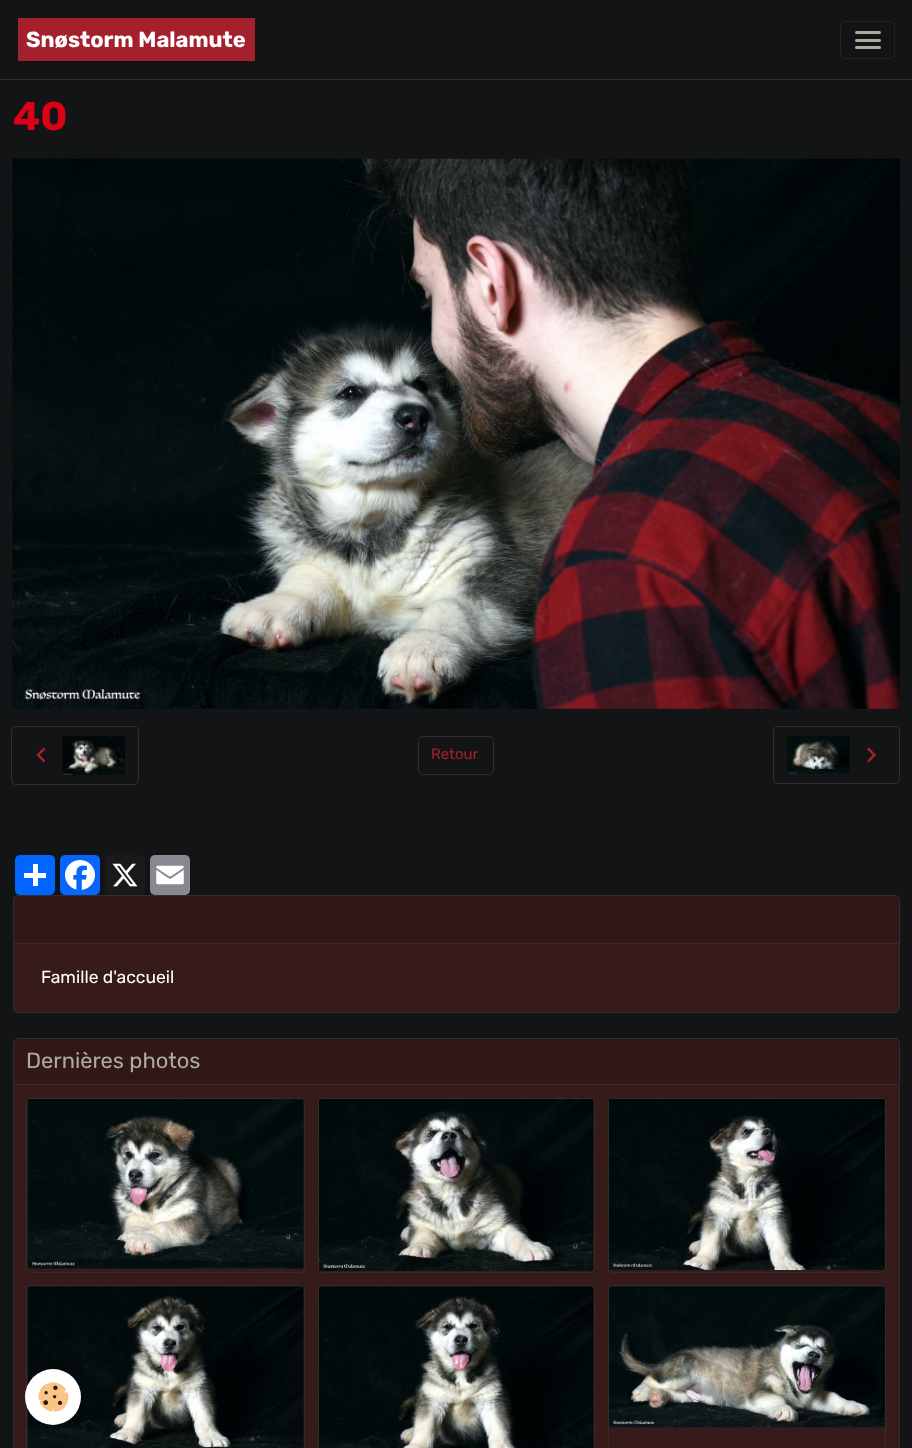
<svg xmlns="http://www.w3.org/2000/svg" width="912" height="1448">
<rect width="100%" height="100%" fill="#131416"/>
<rect y="79" width="912" height="1" fill="#2f2f2f"/>
<rect x="18" y="18" width="237" height="43" fill="#a4202d"/>
<text x="26" y="47" style="font-family:Rubik;font-size:21.9px;font-weight:bold;fill:#fff">Snøstorm Malamute</text>
<rect x="840.5" y="21.5" width="54" height="37" rx="4.5" fill="none" stroke="#222323"/>
<rect x="855" y="31" width="26" height="3" rx="1.5" fill="#adab9c"/>
<rect x="855" y="39" width="26" height="3" rx="1.5" fill="#adab9c"/>
<rect x="855" y="46" width="26" height="3" rx="1.5" fill="#adab9c"/>
<text x="13" y="130" style="font-family:Rubik;font-size:40px;font-weight:bold;fill:#d90217">40</text>
<image x="12" y="158" width="888" height="551" href="media/1.png"/>
<rect x="11.5" y="726.5" width="127" height="58" rx="4.5" fill="none" stroke="#2f2f2f"/>
<image x="36" y="747" width="10" height="16" href="media/2.png"/>
<image x="62" y="736" width="63" height="39" href="media/3.png"/>
<rect x="418.5" y="736.5" width="75" height="38" rx="4.5" fill="none" stroke="#2f2f2f"/>
<text x="431" y="759" style="font-family:Rubik;font-size:15px;fill:#a4202d">Retour</text>
<rect x="773.5" y="726.5" width="126" height="57" rx="4.5" fill="none" stroke="#2f2f2f"/>
<image x="787" y="736" width="63" height="38" href="media/4.png"/>
<image x="867" y="747" width="10" height="16" href="media/5.png"/>
<rect x="15" y="855" width="40" height="40" rx="5" fill="#0166ff"/>
<rect x="33" y="864" width="5" height="22" fill="#fff"/>
<rect x="24" y="873" width="22" height="5" fill="#fff"/>
<rect x="60" y="855" width="40" height="40" rx="5" fill="#0866ff"/>
<image x="65" y="860" width="30" height="30" href="media/6.png"/>
<rect x="105" y="855" width="40" height="40" rx="5" fill="#1a1a1a"/>
<image x="112" y="863" width="26" height="24" href="media/7.png"/>
<rect x="150" y="855" width="40" height="40" rx="5" fill="#888990"/>
<image x="156" y="865" width="28" height="20" href="media/8.png"/>
<rect x="13.5" y="895.5" width="886" height="117" rx="4.5" fill="#371a1a" stroke="#2f2f2f"/>
<path d="M17 896h879c1.5 0 3 1.5 3 3v45h-885v-45c0-1.5 1.5-3 3-3z" fill="#0000001a"/>
<rect x="14" y="943" width="885" height="1" fill="#2f2f2f"/>
<text x="41" y="983" style="font-family:Rubik;font-size:17.5px;fill:#fff">Famille d'accueil</text>
<rect x="13.5" y="1038.5" width="886" height="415" rx="4.5" fill="#371a1a" stroke="#2f2f2f"/>
<path d="M17 1039h879c1.5 0 3 1.5 3 3v43h-885v-43c0-1.5 1.5-3 3-3z" fill="#0000001a"/>
<rect x="14" y="1084" width="885" height="1" fill="#2f2f2f"/>
<text x="26" y="1068" style="font-family:Rubik;font-size:21.9px;fill:#adab9c">Dernières photos</text>
<rect x="26.5" y="1098.5" width="278" height="174" rx="4.5" fill="none" stroke="#2f2f2f"/>
<image x="27" y="1099" width="277" height="170" href="media/9.png"/>
<rect x="318.5" y="1098.5" width="276" height="174" rx="4.5" fill="none" stroke="#2f2f2f"/>
<image x="319" y="1099" width="275" height="172" href="media/10.png"/>
<rect x="608.5" y="1098.5" width="277" height="174" rx="4.5" fill="none" stroke="#2f2f2f"/>
<image x="609" y="1099" width="276" height="171" href="media/11.png"/>
<rect x="26.5" y="1285.5" width="278" height="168" rx="4.5" fill="none" stroke="#2f2f2f"/>
<image x="27" y="1286" width="277" height="162" href="media/12.png"/>
<rect x="318.5" y="1285.5" width="276" height="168" rx="4.5" fill="none" stroke="#2f2f2f"/>
<image x="319" y="1286" width="275" height="162" href="media/13.png"/>
<rect x="608.5" y="1285.5" width="277" height="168" rx="4.5" fill="none" stroke="#2f2f2f"/>
<image x="609" y="1286" width="276" height="142" href="media/14.png"/>
<circle cx="53" cy="1397" r="28" fill="#fff"/>
<image x="38" y="1382" width="31" height="30" href="media/15.png"/>
</svg>
